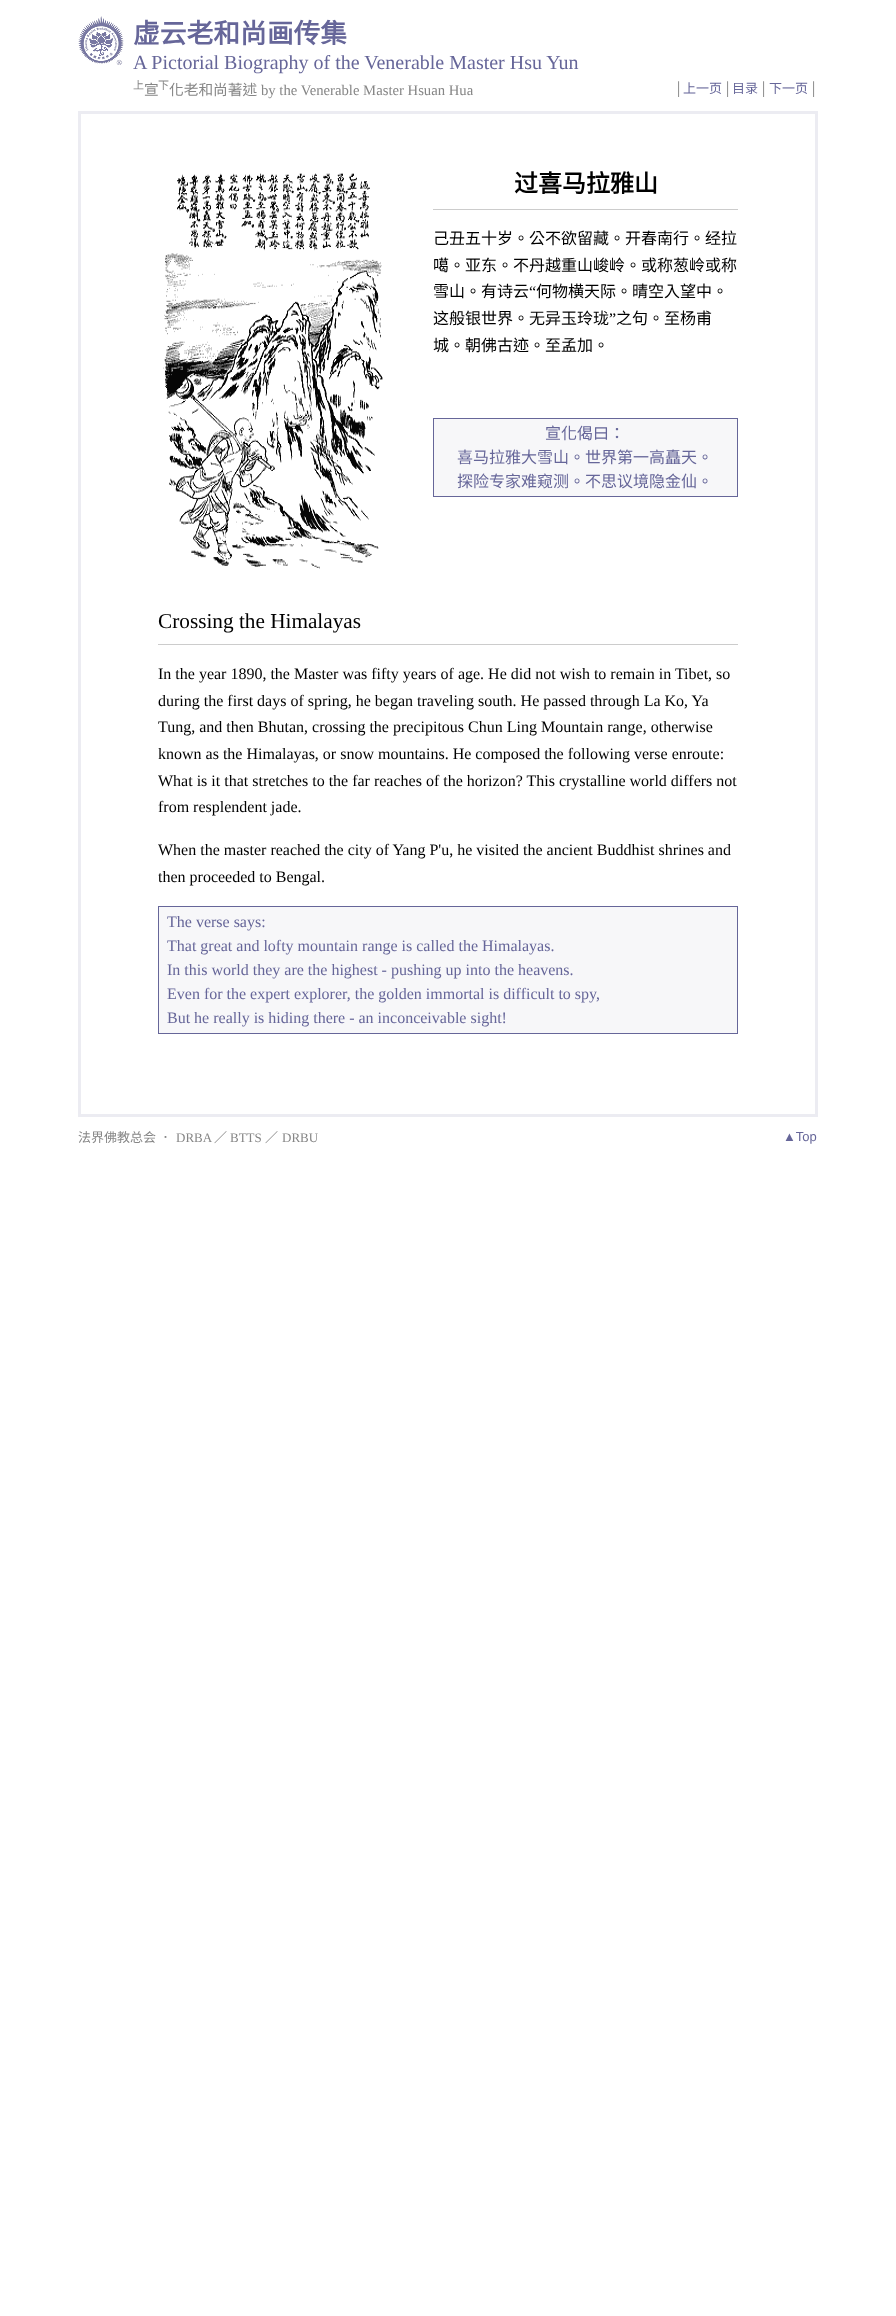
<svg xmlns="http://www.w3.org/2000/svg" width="896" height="2316">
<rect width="100%" height="100%" fill="#fff"/>
<image x="78" y="16" width="46" height="49" href="media/1.png"/>
<text x="133" y="43" style="font-family:Noto Sans CJK TC;font-size:26.75px;font-weight:bold;fill:#669">虚云老和尚画传集</text>
<text x="133" y="69" style="font-family:Liberation Serif;font-size:20px;fill:#669">A Pictorial Biography of the Venerable Master Hsu Yun</text>
<text x="133" y="89" style="font-family:Noto Sans CJK TC;font-size:11px;fill:#868686">上</text>
<text x="144" y="95" style="font-family:Noto Sans CJK TC;font-size:14.7px;fill:#868686">宣</text>
<text x="158" y="89" style="font-family:Noto Sans CJK TC;font-size:11px;fill:#868686">下</text>
<text x="169" y="95" style="font-family:Noto Sans CJK TC;font-size:14.7px;fill:#868686">化老和尚著述</text>
<text x="261" y="95" style="font-family:Liberation Serif;font-size:14.7px;fill:#868686">by the Venerable Master Hsuan Hua</text>
<text x="674" y="93" style="font-family:Liberation Serif;font-size:13px;fill:#868686">│</text>
<text x="683" y="93" style="font-family:Noto Sans CJK TC;font-size:13px;fill:#669">上一页</text>
<text x="723" y="93" style="font-family:Liberation Serif;font-size:13px;fill:#868686">│</text>
<text x="732" y="93" style="font-family:Noto Sans CJK TC;font-size:13px;fill:#669">目录</text>
<text x="759" y="93" style="font-family:Liberation Serif;font-size:13px;fill:#868686">│</text>
<text x="769" y="93" style="font-family:Noto Sans CJK TC;font-size:13px;fill:#669">下一页</text>
<text x="809" y="93" style="font-family:Liberation Serif;font-size:13px;fill:#868686">│</text>
<rect x="78" y="111" width="740" height="3" fill="#ececf2"/>
<rect x="815" y="111" width="3" height="1006" fill="#ececf2"/>
<rect x="78" y="1114" width="740" height="3" fill="#ececf2"/>
<rect x="78" y="111" width="3" height="1006" fill="#ececf2"/>
<image x="163" y="173" width="220" height="396" href="media/2.png"/>
<rect x="433" y="209" width="305" height="1" fill="#ccc"/>
<text x="514" y="192" style="font-family:Noto Sans CJK TC;font-size:24px;font-weight:bold;fill:#000">过喜马拉雅山</text>
<text x="433" y="244" style="font-family:Noto Sans CJK TC;font-size:16px;fill:#000">己丑五十岁。公不欲留藏。开春南行。经拉</text>
<text x="433" y="271" style="font-family:Noto Sans CJK TC;font-size:16px;fill:#000">噶。亚东。不丹越重山峻岭。或称葱岭或称</text>
<text x="433" y="297" style="font-family:Noto Sans CJK TC;font-size:16px;fill:#000">雪山。有诗云</text>
<text x="529" y="297" style="font-family:Liberation Serif;font-size:16px;fill:#000">“</text>
<text x="536" y="297" style="font-family:Noto Sans CJK TC;font-size:16px;fill:#000">何物横天际。晴空入望中。</text>
<text x="433" y="324" style="font-family:Noto Sans CJK TC;font-size:16px;fill:#000">这般银世界。无异玉玲珑</text>
<text x="609" y="324" style="font-family:Liberation Serif;font-size:16px;fill:#000">”</text>
<text x="616" y="324" style="font-family:Noto Sans CJK TC;font-size:16px;fill:#000">之句。至杨甫</text>
<text x="433" y="351" style="font-family:Noto Sans CJK TC;font-size:16px;fill:#000">城。朝佛古迹。至孟加。</text>
<rect x="433.5" y="418.5" width="304" height="78" fill="#f7f7f9" stroke="#669"/>
<text x="545" y="439" style="font-family:Noto Sans CJK TC;font-size:16px;fill:#669">宣化偈曰：</text>
<text x="457" y="463" style="font-family:Noto Sans CJK TC;font-size:16px;fill:#669">喜马拉雅大雪山。世界第一高矗天。</text>
<text x="457" y="487" style="font-family:Noto Sans CJK TC;font-size:16px;fill:#669">探险专家难窥测。不思议境隐金仙。</text>
<rect x="158" y="644" width="580" height="1" fill="#ccc"/>
<text x="158" y="628" style="font-family:Liberation Serif;font-size:21.25px;fill:#000">Crossing the Himalayas</text>
<text x="158" y="679" style="font-family:Liberation Serif;font-size:16px;fill:#000">In the year 1890, the Master was fifty years of age. He did not wish to remain in Tibet, so</text>
<text x="158" y="706" style="font-family:Liberation Serif;font-size:16px;fill:#000">during the first days of spring, he began traveling south. He passed through La Ko, Ya</text>
<text x="158" y="732" style="font-family:Liberation Serif;font-size:16px;fill:#000">Tung, and then Bhutan, crossing the precipitous Chun Ling Mountain range, otherwise</text>
<text x="158" y="759" style="font-family:Liberation Serif;font-size:16px;fill:#000">known as the Himalayas, or snow mountains. He composed the following verse enroute:</text>
<text x="158" y="786" style="font-family:Liberation Serif;font-size:16px;fill:#000">What is it that stretches to the far reaches of the horizon? This crystalline world differs not</text>
<text x="158" y="812" style="font-family:Liberation Serif;font-size:16px;fill:#000">from resplendent jade.</text>
<text x="158" y="855" style="font-family:Liberation Serif;font-size:16px;fill:#000">When the master reached the city of Yang P'u, he visited the ancient Buddhist shrines and</text>
<text x="158" y="882" style="font-family:Liberation Serif;font-size:16px;fill:#000">then proceeded to Bengal.</text>
<rect x="158.5" y="906.5" width="579" height="127" fill="#f7f7f9" stroke="#669"/>
<text x="167" y="927" style="font-family:Liberation Serif;font-size:16px;fill:#669">The verse says:</text>
<text x="167" y="951" style="font-family:Liberation Serif;font-size:16px;fill:#669">That great and lofty mountain range is called the Himalayas.</text>
<text x="167" y="975" style="font-family:Liberation Serif;font-size:16px;fill:#669">In this world they are the highest - pushing up into the heavens.</text>
<text x="167" y="999" style="font-family:Liberation Serif;font-size:16px;fill:#669">Even for the expert explorer, the golden immortal is difficult to spy,</text>
<text x="167" y="1023" style="font-family:Liberation Serif;font-size:16px;fill:#669">But he really is hiding there - an inconceivable sight!</text>
<text x="78" y="1142" style="font-family:Noto Sans CJK TC;font-size:13px;fill:#868686">法界佛教总会</text>
<text x="159" y="1142" style="font-family:Noto Sans CJK TC;font-size:13px;fill:#868686">．</text>
<text x="176" y="1142" style="font-family:Liberation Serif;font-size:13px;fill:#868686">DRBA</text>
<text x="214" y="1142" style="font-family:Noto Sans CJK TC;font-size:13px;fill:#868686">／</text>
<text x="230" y="1142" style="font-family:Liberation Serif;font-size:13px;fill:#868686">BTTS</text>
<text x="265" y="1142" style="font-family:Noto Sans CJK TC;font-size:13px;fill:#868686">／</text>
<text x="282" y="1142" style="font-family:Liberation Serif;font-size:13px;fill:#868686">DRBU</text>
<text x="783" y="1141" style="font-family:Liberation Sans;font-size:13px;fill:#669">▲Top</text>
</svg>
